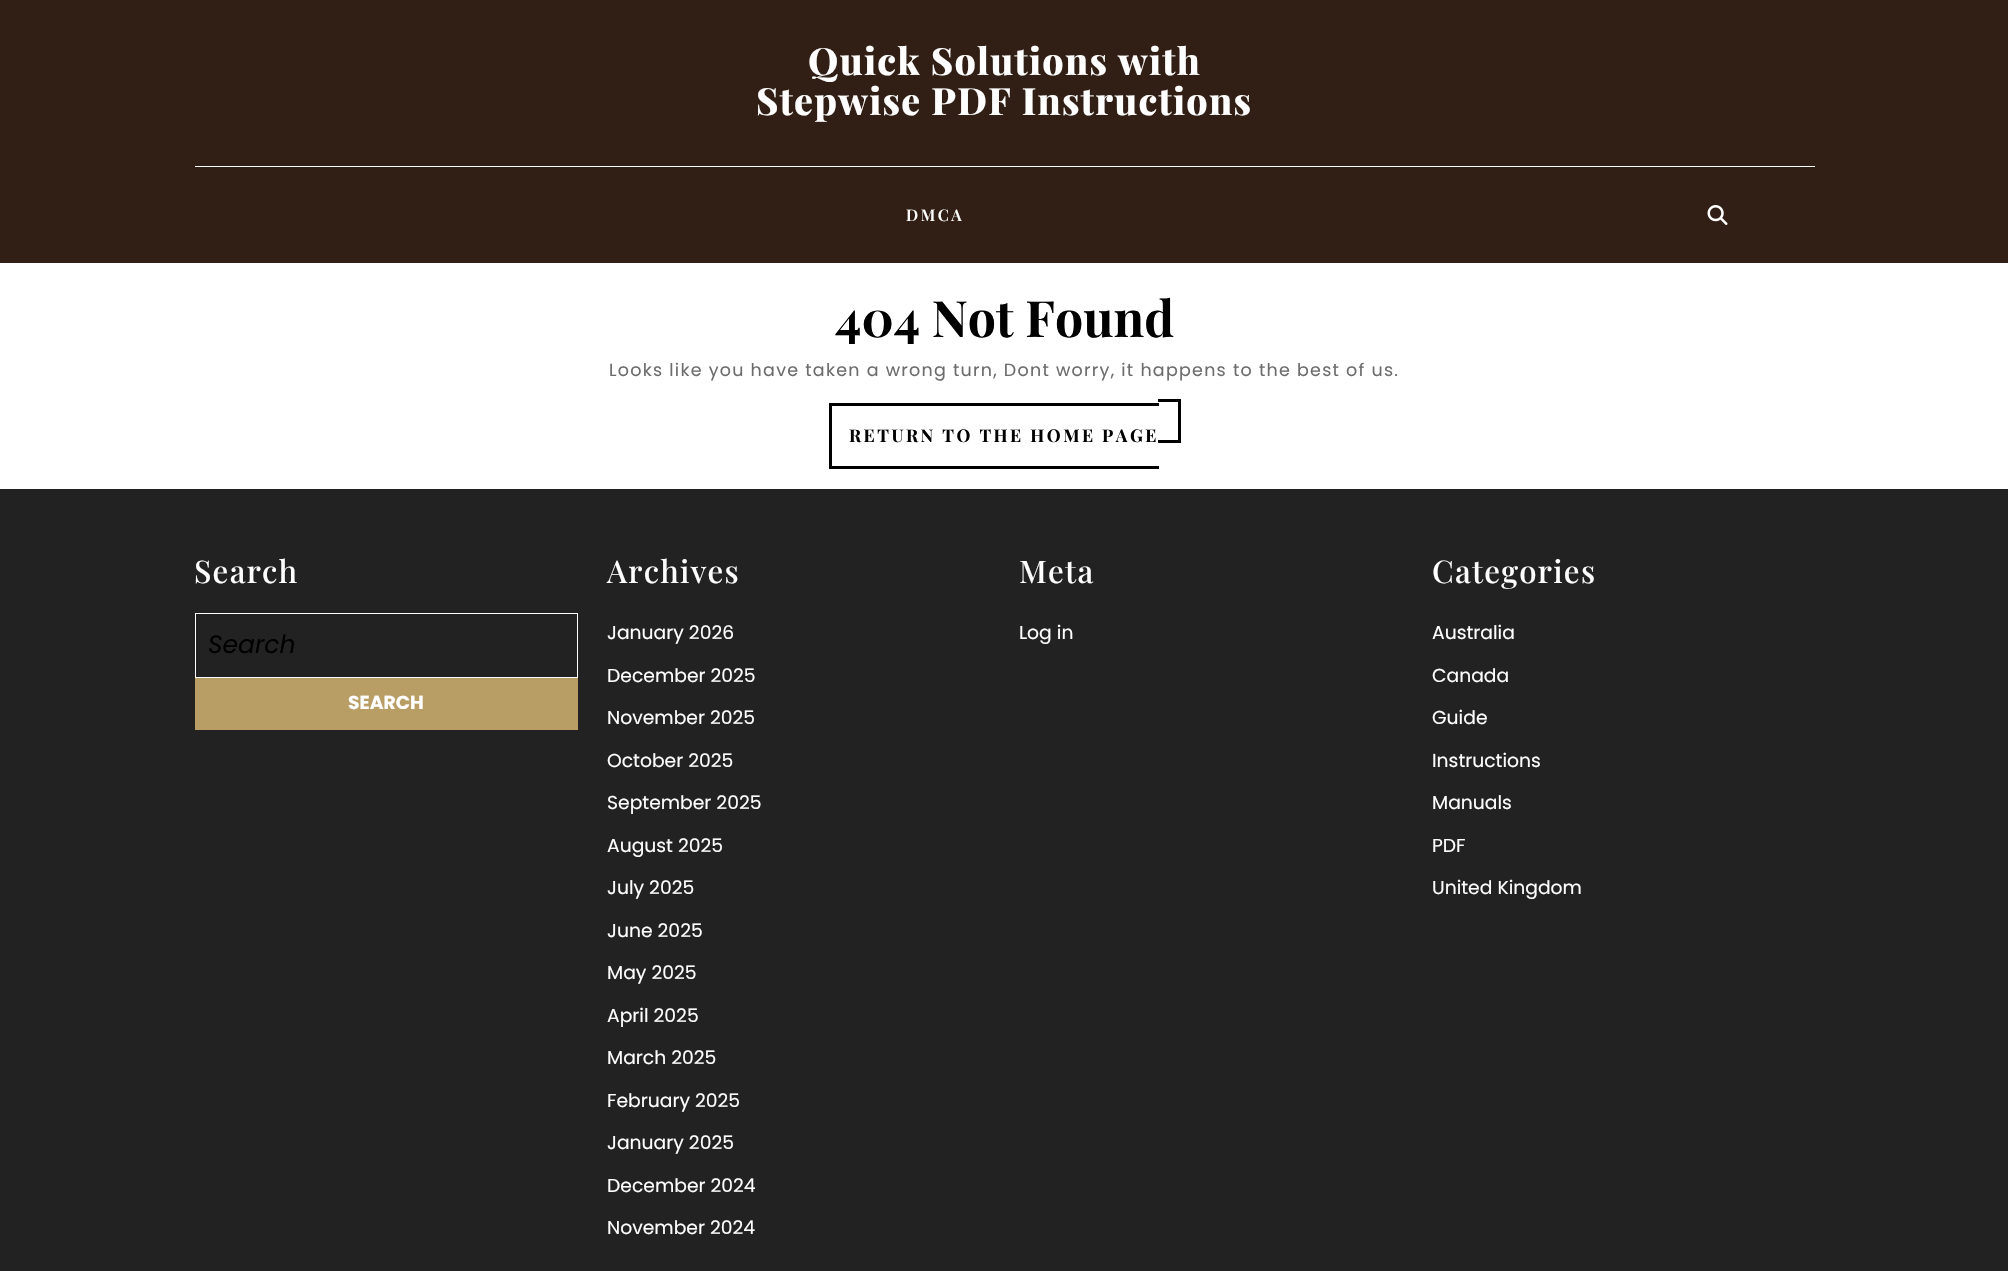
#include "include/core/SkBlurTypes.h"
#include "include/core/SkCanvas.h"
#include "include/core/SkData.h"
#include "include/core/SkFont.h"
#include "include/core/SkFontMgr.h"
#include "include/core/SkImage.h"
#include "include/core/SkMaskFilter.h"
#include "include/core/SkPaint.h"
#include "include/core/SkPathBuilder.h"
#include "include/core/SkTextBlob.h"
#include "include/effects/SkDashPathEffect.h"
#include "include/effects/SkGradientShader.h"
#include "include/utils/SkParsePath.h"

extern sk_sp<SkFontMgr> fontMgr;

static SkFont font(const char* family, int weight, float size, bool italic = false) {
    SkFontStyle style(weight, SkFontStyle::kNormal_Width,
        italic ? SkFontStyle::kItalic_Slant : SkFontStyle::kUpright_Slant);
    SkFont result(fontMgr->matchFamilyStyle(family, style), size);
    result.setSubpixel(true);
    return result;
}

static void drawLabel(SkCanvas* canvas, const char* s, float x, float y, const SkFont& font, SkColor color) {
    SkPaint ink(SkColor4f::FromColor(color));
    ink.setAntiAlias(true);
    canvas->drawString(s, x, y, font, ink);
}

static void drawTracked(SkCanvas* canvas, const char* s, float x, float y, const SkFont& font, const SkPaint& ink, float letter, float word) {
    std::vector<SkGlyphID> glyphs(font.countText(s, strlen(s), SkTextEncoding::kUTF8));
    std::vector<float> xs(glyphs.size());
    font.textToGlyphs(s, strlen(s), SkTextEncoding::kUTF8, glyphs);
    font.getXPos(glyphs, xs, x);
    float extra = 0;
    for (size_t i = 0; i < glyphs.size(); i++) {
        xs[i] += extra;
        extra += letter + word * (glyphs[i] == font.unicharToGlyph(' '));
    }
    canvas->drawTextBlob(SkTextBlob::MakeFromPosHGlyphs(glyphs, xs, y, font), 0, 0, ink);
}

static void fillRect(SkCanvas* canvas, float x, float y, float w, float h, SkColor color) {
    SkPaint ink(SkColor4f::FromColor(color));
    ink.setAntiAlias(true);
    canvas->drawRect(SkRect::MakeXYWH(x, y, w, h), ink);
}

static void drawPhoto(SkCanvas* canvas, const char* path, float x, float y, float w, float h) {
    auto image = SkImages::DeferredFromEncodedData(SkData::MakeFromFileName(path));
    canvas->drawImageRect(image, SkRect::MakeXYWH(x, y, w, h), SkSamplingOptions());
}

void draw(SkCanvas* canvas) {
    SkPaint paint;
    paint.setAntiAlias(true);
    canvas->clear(0xFFFFFFFF);
    fillRect(canvas, 0, 0, 2008, 263, 0xFF311F15);
    SkFont font1 = font("Playfair Display", 800, 37.5f);
    paint.setColor(0xFFFFFFFF);
    drawTracked(canvas, "Quick Solutions with", 808, 75, font1, paint, 1.25f, 0);
    drawTracked(canvas, "Stepwise PDF Instructions", 756, 115, font1, paint, 1.25f, 0);
    fillRect(canvas, 195, 166, 1620, 1, 0xFFFFFFFF);
    SkFont font2 = font("Playfair Display", 600, 16);
    drawTracked(canvas, "DMCA", 906, 221, font2, paint, 2.5f, 0);
    drawPhoto(canvas, "assets/img1.png", 1707, 205, 21, 20);
    SkFont font3 = font("Playfair Display", 700, 50);
    drawLabel(canvas, "404 Not Found", 835, 337, font3, 0xFF000000);
    SkFont font4 = font("Poppins", 400, 17.5f);
    paint.setColor(0xFF6C6C6C);
    drawTracked(canvas, "Looks like you have taken a wrong turn, Dont worry, it happens to the best of us.", 609, 376, font4, paint, 1.25f, 0);
    SkFont font5 = font("Playfair Display", 700, 17.5f);
    paint.setColor(0xFF000000);
    drawTracked(canvas, "RETURN TO THE HOME PAGE", 849, 442, font5, paint, 2.5f, 0);
    fillRect(canvas, 829, 403, 330, 3, 0xFF000000);
    fillRect(canvas, 829, 466, 330, 3, 0xFF000000);
    fillRect(canvas, 829, 403, 3, 66, 0xFF000000);
    fillRect(canvas, 1158, 399, 22, 3, 0xFF000000);
    fillRect(canvas, 1178, 399, 3, 44, 0xFF000000);
    fillRect(canvas, 1158, 440, 22, 3, 0xFF000000);
    fillRect(canvas, 0, 489, 2008, 782, 0xFF222222);
    SkFont font6 = font("Playfair Display", 500, 31.25f);
    paint.setColor(0xFFFFFFFF);
    drawTracked(canvas, "Search", 194, 583, font6, paint, 1.25f, 0);
    paint.setStroke(true);
    paint.setStrokeWidth(1);
    canvas->drawRect(SkRect::MakeXYWH(195.5f, 613.5f, 382, 64), paint);
    SkFont font7 = font("Poppins", 400, 25, true);
    drawLabel(canvas, "Search", 208, 653, font7, 0xFF000000);
    fillRect(canvas, 195, 678, 383, 52, 0xFFB89D64);
    SkFont font8 = font("Poppins", 700, 18.75f);
    drawLabel(canvas, "SEARCH", 348, 709, font8, 0xFFFFFFFF);
    paint.setStroke(false);
    drawTracked(canvas, "Archives", 607, 583, font6, paint, 1.25f, 0);
    SkFont font9 = font("Poppins", 400, 18.75f);
    drawLabel(canvas, "January 2026", 607, 639, font9, 0xFFFFFFFF);
    drawLabel(canvas, "December 2025", 607, 682, font9, 0xFFFFFFFF);
    drawLabel(canvas, "November 2025", 607, 724, font9, 0xFFFFFFFF);
    drawLabel(canvas, "October 2025", 607, 767, font9, 0xFFFFFFFF);
    drawLabel(canvas, "September 2025", 607, 809, font9, 0xFFFFFFFF);
    drawLabel(canvas, "August 2025", 607, 852, font9, 0xFFFFFFFF);
    drawLabel(canvas, "July 2025", 607, 894, font9, 0xFFFFFFFF);
    drawLabel(canvas, "June 2025", 607, 937, font9, 0xFFFFFFFF);
    drawLabel(canvas, "May 2025", 607, 979, font9, 0xFFFFFFFF);
    drawLabel(canvas, "April 2025", 607, 1022, font9, 0xFFFFFFFF);
    drawLabel(canvas, "March 2025", 607, 1064, font9, 0xFFFFFFFF);
    drawLabel(canvas, "February 2025", 607, 1107, font9, 0xFFFFFFFF);
    drawLabel(canvas, "January 2025", 607, 1149, font9, 0xFFFFFFFF);
    drawLabel(canvas, "December 2024", 607, 1192, font9, 0xFFFFFFFF);
    drawLabel(canvas, "November 2024", 607, 1234, font9, 0xFFFFFFFF);
    drawTracked(canvas, "Meta", 1019, 583, font6, paint, 1.25f, 0);
    drawLabel(canvas, "Log in", 1019, 639, font9, 0xFFFFFFFF);
    drawTracked(canvas, "Categories", 1432, 583, font6, paint, 1.25f, 0);
    drawLabel(canvas, "Australia", 1432, 639, font9, 0xFFFFFFFF);
    drawLabel(canvas, "Canada", 1432, 682, font9, 0xFFFFFFFF);
    drawLabel(canvas, "Guide", 1432, 724, font9, 0xFFFFFFFF);
    drawLabel(canvas, "Instructions", 1432, 767, font9, 0xFFFFFFFF);
    drawLabel(canvas, "Manuals", 1432, 809, font9, 0xFFFFFFFF);
    drawLabel(canvas, "PDF", 1432, 852, font9, 0xFFFFFFFF);
    drawLabel(canvas, "United Kingdom", 1432, 894, font9, 0xFFFFFFFF);
}
